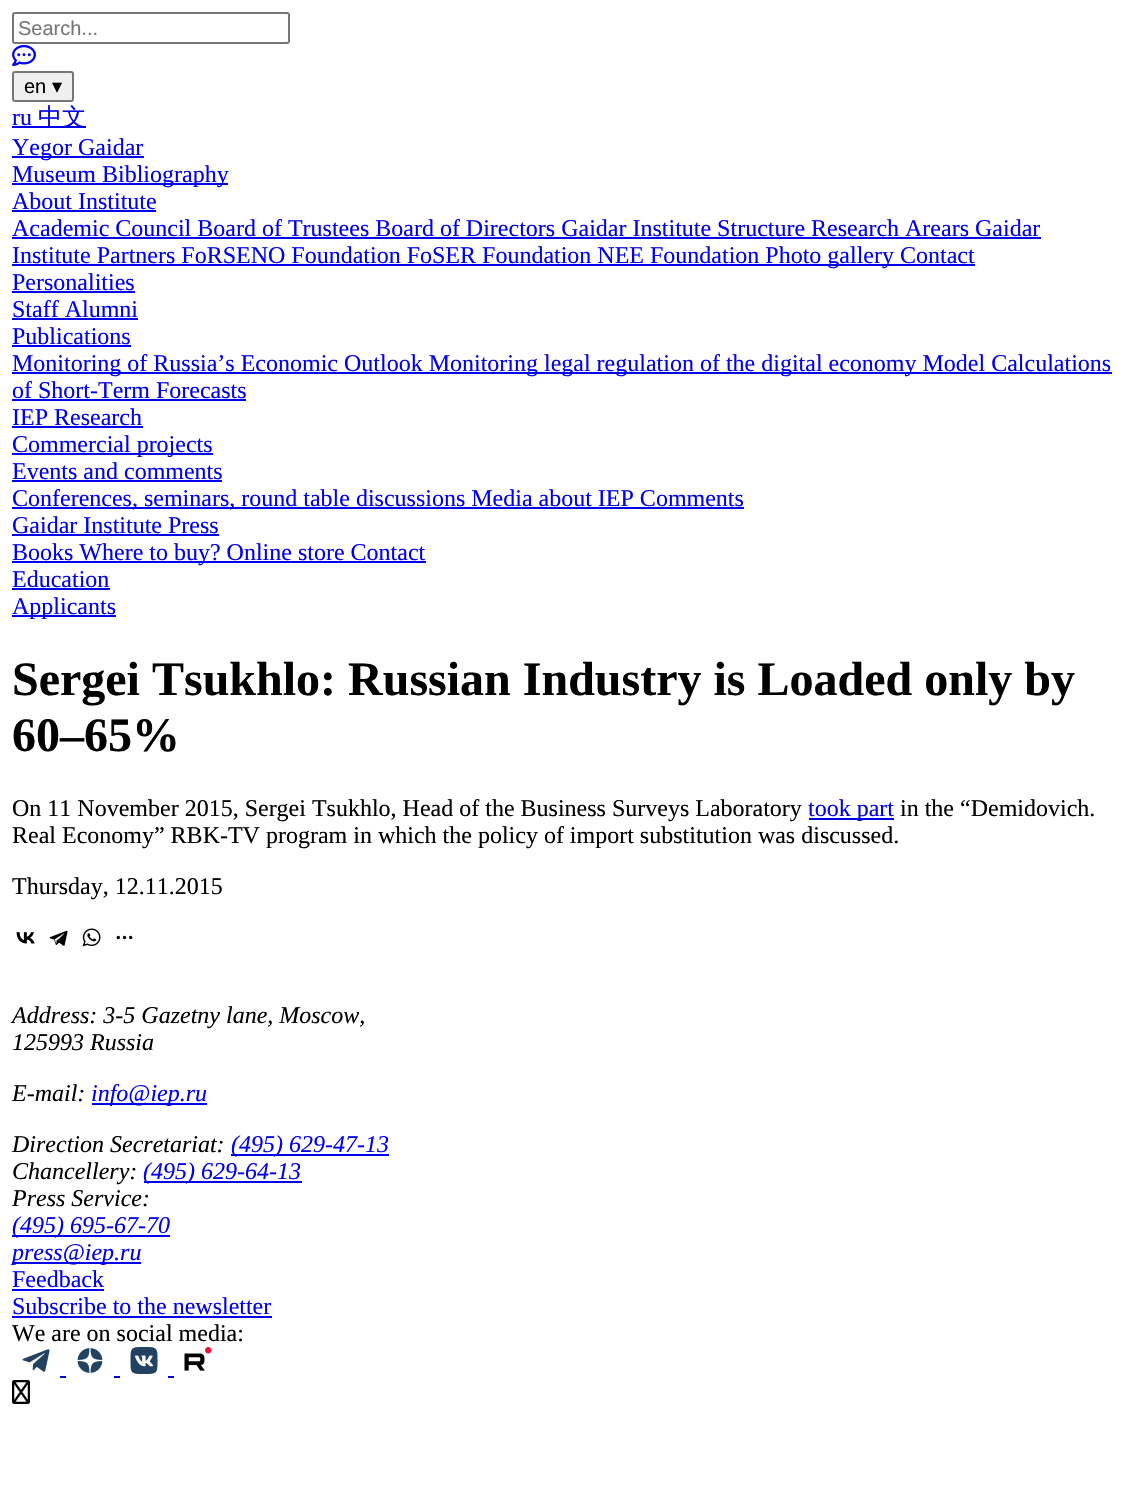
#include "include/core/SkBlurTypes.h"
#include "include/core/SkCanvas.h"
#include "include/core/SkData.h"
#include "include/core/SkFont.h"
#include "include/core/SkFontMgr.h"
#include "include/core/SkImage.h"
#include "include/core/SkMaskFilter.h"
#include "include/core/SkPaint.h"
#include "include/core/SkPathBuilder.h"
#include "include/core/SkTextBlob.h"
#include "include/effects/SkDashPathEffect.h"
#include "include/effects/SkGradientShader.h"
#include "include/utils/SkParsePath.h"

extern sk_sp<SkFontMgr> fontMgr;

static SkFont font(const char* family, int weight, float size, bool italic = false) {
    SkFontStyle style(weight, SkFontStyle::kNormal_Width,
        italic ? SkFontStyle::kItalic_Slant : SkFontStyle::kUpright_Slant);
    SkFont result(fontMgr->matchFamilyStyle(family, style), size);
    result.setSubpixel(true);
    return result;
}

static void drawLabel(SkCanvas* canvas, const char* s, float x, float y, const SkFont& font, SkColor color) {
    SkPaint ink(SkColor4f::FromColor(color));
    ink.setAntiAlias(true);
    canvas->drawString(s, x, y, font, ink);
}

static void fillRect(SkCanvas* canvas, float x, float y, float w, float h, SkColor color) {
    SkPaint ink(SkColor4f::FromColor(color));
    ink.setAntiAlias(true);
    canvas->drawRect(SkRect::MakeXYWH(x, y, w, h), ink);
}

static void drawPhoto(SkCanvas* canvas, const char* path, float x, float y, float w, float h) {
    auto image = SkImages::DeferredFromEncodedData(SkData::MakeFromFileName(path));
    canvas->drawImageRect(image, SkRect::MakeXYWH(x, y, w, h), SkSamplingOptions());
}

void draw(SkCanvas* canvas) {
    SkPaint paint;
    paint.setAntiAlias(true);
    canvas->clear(0xFFFFFFFF);
    paint.setStroke(true);
    paint.setStrokeWidth(2);
    paint.setColor(0xFF767676);
    canvas->drawRoundRect(SkRect::MakeXYWH(13, 13, 276, 30), 2, 2, paint);
    SkFont font1 = font("Liberation Sans", 400, 20);
    drawLabel(canvas, "Search...", 18, 35, font1, 0xFF757575);
    drawPhoto(canvas, "assets/img1.png", 12, 45, 24, 21);
    paint.setStroke(false);
    paint.setColor(0xFFEFEFEF);
    canvas->drawRoundRect(SkRect::MakeXYWH(13, 72, 60, 29), 2, 2, paint);
    paint.setStroke(true);
    paint.setColor(0xFF767676);
    canvas->drawRoundRect(SkRect::MakeXYWH(13, 72, 60, 29), 2, 2, paint);
    drawLabel(canvas, "en", 24, 93, font1, 0xFF000000);
    SkFont font2 = font("DejaVu Sans", 400, 20);
    drawLabel(canvas, "▾", 52, 93, font2, 0xFF000000);
    SkFont font3 = font("Liberation Serif", 400, 24);
    drawLabel(canvas, "ru", 12, 125, font3, 0xFF0000EE);
    fillRect(canvas, 12, 126, 74, 2, 0xFF0000EE);
    SkFont font4 = font("WenQuanYi Zen Hei", 500, 24);
    drawLabel(canvas, "中文", 38, 125, font4, 0xFF0000EE);
    fillRect(canvas, 12, 156, 132, 2, 0xFF0000EE);
    drawLabel(canvas, "Yegor Gaidar", 12, 155, font3, 0xFF0000EE);
    fillRect(canvas, 12, 183, 216, 2, 0xFF0000EE);
    drawLabel(canvas, "Museum Bibliography", 12, 182, font3, 0xFF0000EE);
    drawLabel(canvas, "About Institute", 12, 209, font3, 0xFF0000EE);
    fillRect(canvas, 12, 210, 144, 2, 0xFF0000EE);
    drawLabel(canvas, "Academic Council Board of Trustees Board of Directors Gaidar Institute Structure Research Arears Gaidar", 12, 236, font3, 0xFF0000EE);
    fillRect(canvas, 12, 237, 1029, 2, 0xFF0000EE);
    fillRect(canvas, 12, 264, 963, 2, 0xFF0000EE);
    drawLabel(canvas, "Institute Partners FoRSENO Foundation FoSER Foundation NEE Foundation Photo gallery Contact", 12, 263, font3, 0xFF0000EE);
    drawLabel(canvas, "Personalities", 12, 290, font3, 0xFF0000EE);
    fillRect(canvas, 12, 291, 123, 2, 0xFF0000EE);
    drawLabel(canvas, "Staff Alumni", 12, 317, font3, 0xFF0000EE);
    fillRect(canvas, 12, 318, 126, 2, 0xFF0000EE);
    drawLabel(canvas, "Publications", 12, 344, font3, 0xFF0000EE);
    fillRect(canvas, 12, 345, 119, 2, 0xFF0000EE);
    fillRect(canvas, 12, 372, 1100, 2, 0xFF0000EE);
    drawLabel(canvas, "Monitoring of Russia’s Economic Outlook Monitoring legal regulation of the digital economy Model Calculations", 12, 371, font3, 0xFF0000EE);
    drawLabel(canvas, "of Short-Term Forecasts", 12, 398, font3, 0xFF0000EE);
    fillRect(canvas, 12, 399, 234, 2, 0xFF0000EE);
    drawLabel(canvas, "IEP Research", 12, 425, font3, 0xFF0000EE);
    fillRect(canvas, 12, 426, 131, 2, 0xFF0000EE);
    fillRect(canvas, 12, 453, 201, 2, 0xFF0000EE);
    drawLabel(canvas, "Commercial projects", 12, 452, font3, 0xFF0000EE);
    drawLabel(canvas, "Events and comments", 12, 479, font3, 0xFF0000EE);
    fillRect(canvas, 12, 480, 210, 2, 0xFF0000EE);
    fillRect(canvas, 12, 507, 732, 2, 0xFF0000EE);
    drawLabel(canvas, "Conferences, seminars, round table discussions Media about IEP Comments", 12, 506, font3, 0xFF0000EE);
    drawLabel(canvas, "Gaidar Institute Press", 12, 533, font3, 0xFF0000EE);
    fillRect(canvas, 12, 534, 207, 2, 0xFF0000EE);
    fillRect(canvas, 12, 561, 414, 2, 0xFF0000EE);
    drawLabel(canvas, "Books Where to buy? Online store Contact", 12, 560, font3, 0xFF0000EE);
    drawLabel(canvas, "Education", 12, 587, font3, 0xFF0000EE);
    fillRect(canvas, 12, 588, 98, 2, 0xFF0000EE);
    fillRect(canvas, 12, 615, 104, 2, 0xFF0000EE);
    drawLabel(canvas, "Applicants", 12, 614, font3, 0xFF0000EE);
    SkFont font5 = font("Liberation Serif", 700, 48);
    drawLabel(canvas, "Sergei Tsukhlo: Russian Industry is Loaded only by", 12, 695, font5, 0xFF000000);
    drawLabel(canvas, "60–65%", 12, 751, font5, 0xFF000000);
    drawLabel(canvas, "On 11 November 2015, Sergei Tsukhlo, Head of the Business Surveys Laboratory", 12, 816, font3, 0xFF000000);
    fillRect(canvas, 809, 818, 85, 2, 0xFF0000EE);
    drawLabel(canvas, "took part", 808, 816, font3, 0xFF0000EE);
    drawLabel(canvas, "in the “Demidovich.", 900, 816, font3, 0xFF000000);
    drawLabel(canvas, "Real Economy” RBK-TV program in which the policy of import substitution was discussed.", 12, 843, font3, 0xFF000000);
    drawLabel(canvas, "Thursday, 12.11.2015", 12, 894, font3, 0xFF000000);
    drawPhoto(canvas, "assets/img2.png", 16, 932, 19, 12);
    drawPhoto(canvas, "assets/img3.png", 49, 930, 19, 16);
    drawPhoto(canvas, "assets/img4.png", 82, 928, 19, 19);
    drawPhoto(canvas, "assets/img5.png", 116, 935, 17, 5);
    SkFont font6 = font("Liberation Serif", 400, 24, true);
    drawLabel(canvas, "Address: 3-5 Gazetny lane, Moscow,", 12, 1023, font6, 0xFF000000);
    drawLabel(canvas, "125993 Russia", 12, 1050, font6, 0xFF000000);
    drawLabel(canvas, "E-mail:", 12, 1101, font6, 0xFF000000);
    fillRect(canvas, 92, 1103, 115, 2, 0xFF0000EE);
    drawLabel(canvas, "info@iep.ru", 91, 1101, font6, 0xFF0000EE);
    drawLabel(canvas, "Direction Secretariat:", 12, 1152, font6, 0xFF000000);
    fillRect(canvas, 231, 1154, 158, 2, 0xFF0000EE);
    drawLabel(canvas, "(495) 629-47-13", 231, 1152, font6, 0xFF0000EE);
    drawLabel(canvas, "Chancellery:", 12, 1179, font6, 0xFF000000);
    fillRect(canvas, 144, 1181, 158, 2, 0xFF0000EE);
    drawLabel(canvas, "(495) 629-64-13", 143, 1179, font6, 0xFF0000EE);
    drawLabel(canvas, "Press Service:", 12, 1206, font6, 0xFF000000);
    fillRect(canvas, 12, 1235, 158, 2, 0xFF0000EE);
    drawLabel(canvas, "(495) 695-67-70", 12, 1233, font6, 0xFF0000EE);
    fillRect(canvas, 12, 1262, 129, 2, 0xFF0000EE);
    drawLabel(canvas, "press@iep.ru", 12, 1260, font6, 0xFF0000EE);
    drawLabel(canvas, "Feedback", 12, 1287, font3, 0xFF0000EE);
    fillRect(canvas, 12, 1289, 92, 2, 0xFF0000EE);
    drawLabel(canvas, "Subscribe to the newsletter", 12, 1314, font3, 0xFF0000EE);
    fillRect(canvas, 12, 1316, 260, 2, 0xFF0000EE);
    drawLabel(canvas, "We are on social media:", 12, 1341, font3, 0xFF000000);
    drawPhoto(canvas, "assets/img6.png", 22, 1349, 28, 23);
    drawPhoto(canvas, "assets/img7.png", 77, 1348, 26, 25);
    drawPhoto(canvas, "assets/img8.png", 130, 1347, 28, 27);
    drawPhoto(canvas, "assets/img9.png", 184, 1347, 28, 24);
    fillRect(canvas, 60, 1376, 6, 2, 0xFF0000EE);
    fillRect(canvas, 114, 1376, 6, 2, 0xFF0000EE);
    fillRect(canvas, 168, 1376, 6, 2, 0xFF0000EE);
    drawPhoto(canvas, "assets/img10.png", 12, 1380, 18, 24);
}
